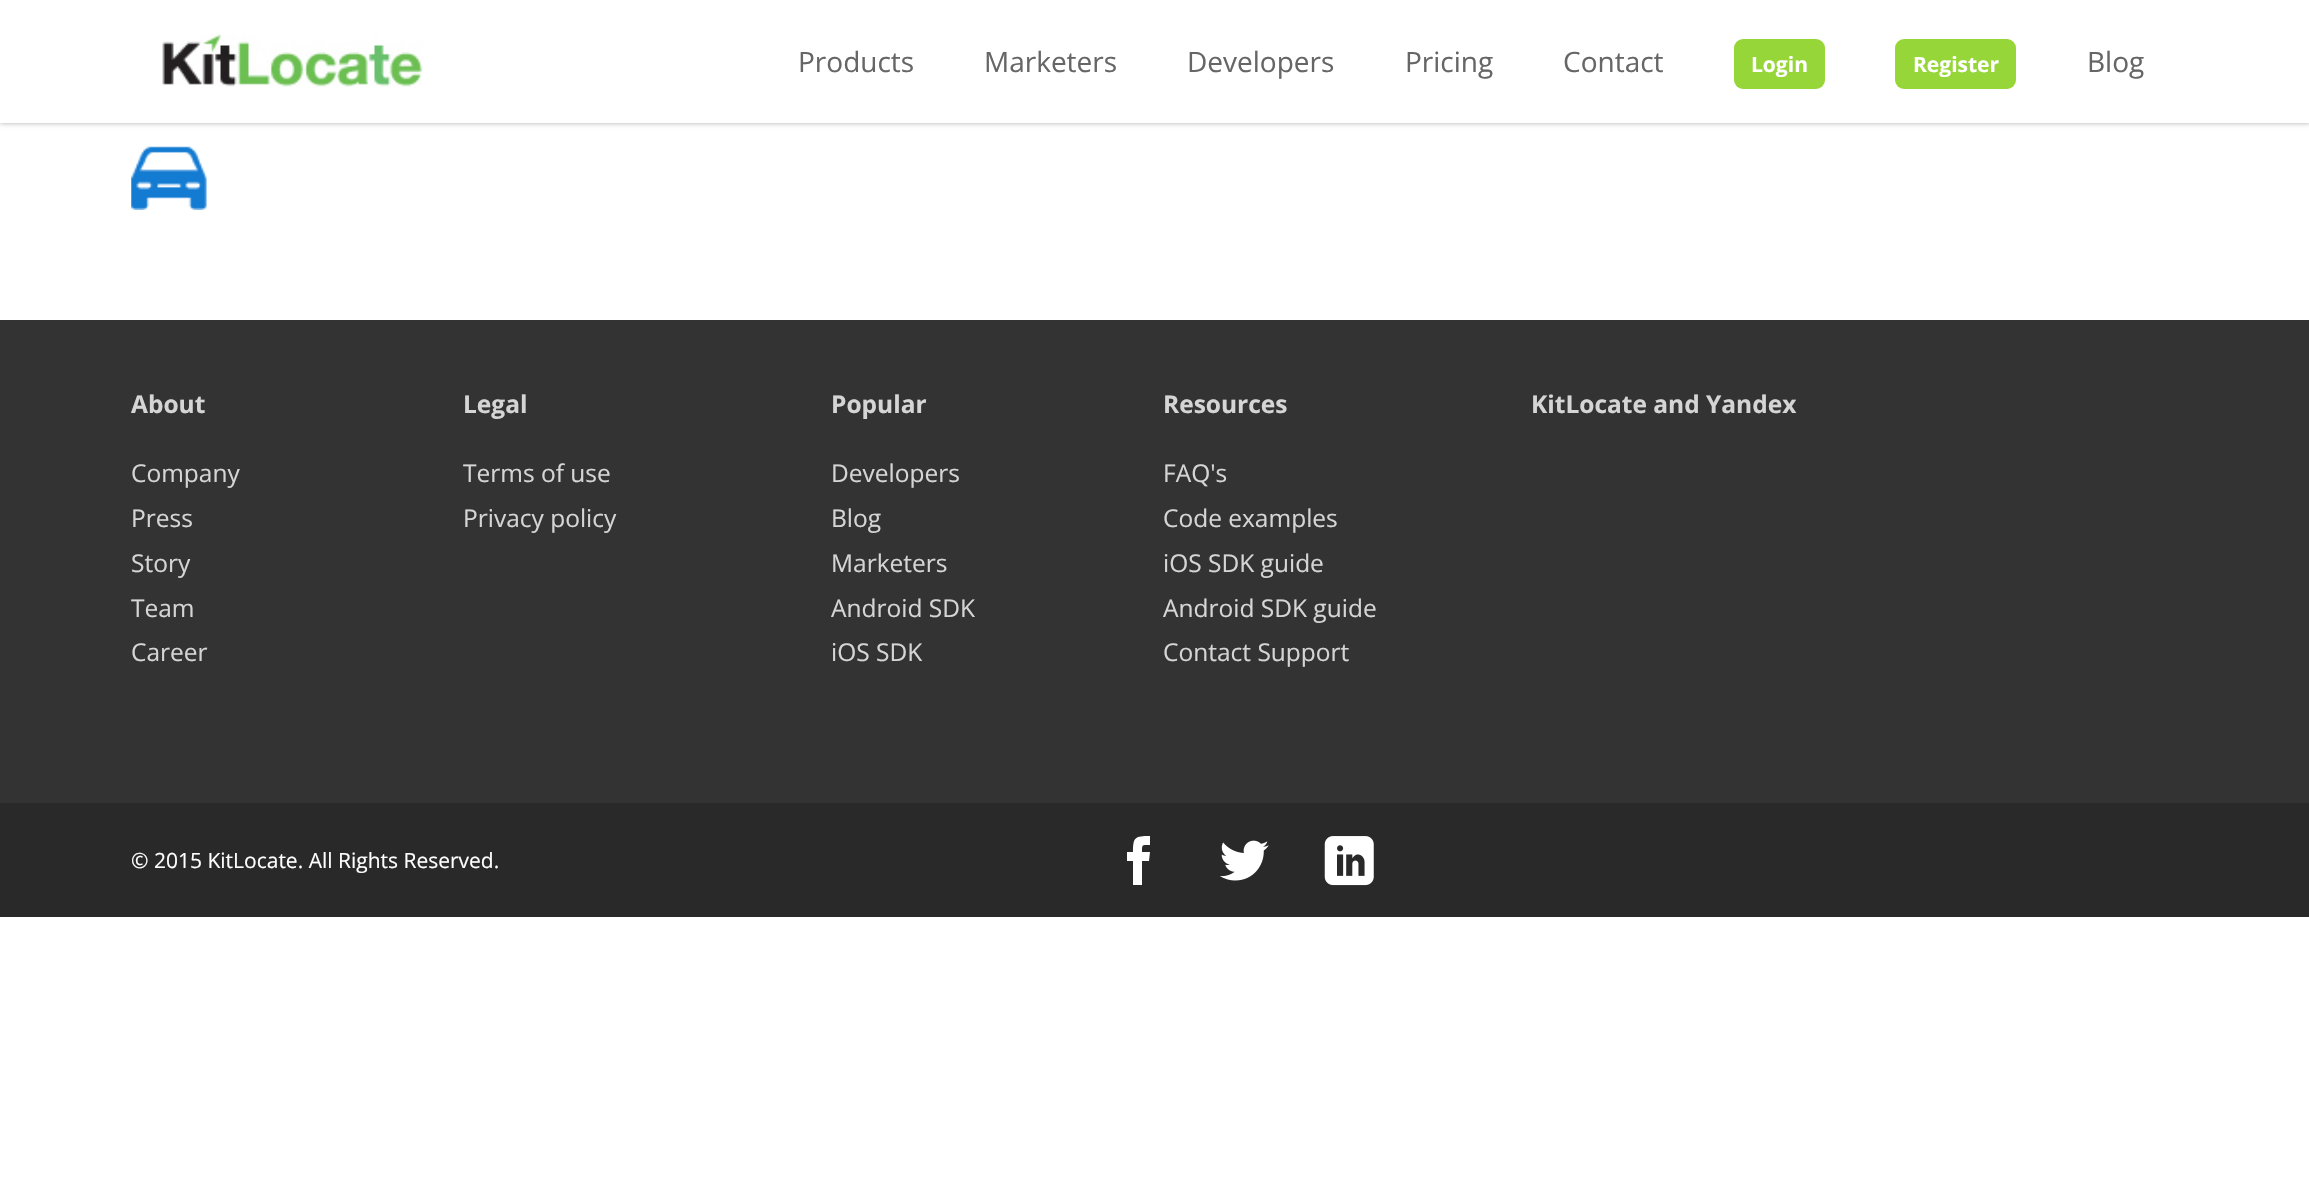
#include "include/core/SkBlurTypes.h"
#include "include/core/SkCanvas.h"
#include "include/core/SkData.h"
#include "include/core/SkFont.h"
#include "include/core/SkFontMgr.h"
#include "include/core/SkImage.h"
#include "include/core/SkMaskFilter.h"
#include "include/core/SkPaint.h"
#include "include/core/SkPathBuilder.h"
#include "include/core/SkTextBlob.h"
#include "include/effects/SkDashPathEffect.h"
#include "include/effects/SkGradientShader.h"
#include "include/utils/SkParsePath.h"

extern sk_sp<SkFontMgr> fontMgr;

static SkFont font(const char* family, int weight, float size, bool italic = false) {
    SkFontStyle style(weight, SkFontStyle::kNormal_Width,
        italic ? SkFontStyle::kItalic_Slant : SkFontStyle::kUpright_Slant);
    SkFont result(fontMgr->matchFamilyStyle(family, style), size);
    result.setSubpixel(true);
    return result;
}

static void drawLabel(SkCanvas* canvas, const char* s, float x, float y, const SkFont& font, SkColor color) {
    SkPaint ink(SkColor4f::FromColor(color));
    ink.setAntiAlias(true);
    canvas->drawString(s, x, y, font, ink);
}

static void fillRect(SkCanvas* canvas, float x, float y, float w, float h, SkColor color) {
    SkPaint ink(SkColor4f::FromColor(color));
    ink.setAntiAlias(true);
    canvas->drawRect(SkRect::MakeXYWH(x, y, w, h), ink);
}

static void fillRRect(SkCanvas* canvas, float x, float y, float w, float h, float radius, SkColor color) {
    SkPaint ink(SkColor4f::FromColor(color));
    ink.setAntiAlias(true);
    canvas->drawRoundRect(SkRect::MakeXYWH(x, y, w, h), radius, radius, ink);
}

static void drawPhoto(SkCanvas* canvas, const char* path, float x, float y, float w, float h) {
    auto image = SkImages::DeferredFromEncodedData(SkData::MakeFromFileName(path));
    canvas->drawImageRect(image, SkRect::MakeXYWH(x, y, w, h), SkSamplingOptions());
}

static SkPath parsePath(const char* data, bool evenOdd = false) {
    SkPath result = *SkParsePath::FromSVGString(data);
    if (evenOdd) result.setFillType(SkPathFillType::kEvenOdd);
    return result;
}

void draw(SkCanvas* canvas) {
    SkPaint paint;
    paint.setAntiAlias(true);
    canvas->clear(0xFFFFFFFF);
    paint.setColor(0x54000000);
    paint.setMaskFilter(SkMaskFilter::MakeBlur(kNormal_SkBlurStyle, 2.5f));
    canvas->drawRect(SkRect::MakeXYWH(0, 0, 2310, 123), paint);
    paint.setMaskFilter(nullptr);
    fillRect(canvas, 0, 0, 2309, 123, 0xFFFFFFFF);
    drawPhoto(canvas, "assets/img1.png", 162, 34, 261, 53);
    SkFont font1 = font("Open Sans", 400, 28);
    drawLabel(canvas, "Products", 798, 72, font1, 0xFF666666);
    drawLabel(canvas, "Marketers", 984, 72, font1, 0xFF666666);
    drawLabel(canvas, "Developers", 1187, 72, font1, 0xFF666666);
    drawLabel(canvas, "Pricing", 1405, 72, font1, 0xFF666666);
    drawLabel(canvas, "Contact", 1563, 72, font1, 0xFF666666);
    fillRRect(canvas, 1734, 39, 91, 50, 9, 0xFF96D639);
    SkFont font2 = font("Open Sans", 700, 21);
    drawLabel(canvas, "Login", 1751, 72, font2, 0xFFFFFFFF);
    fillRRect(canvas, 1895, 39, 121, 50, 9, 0xFF96D639);
    drawLabel(canvas, "Register", 1913, 72, font2, 0xFFFFFFFF);
    drawLabel(canvas, "Blog", 2087, 72, font1, 0xFF666666);
    drawPhoto(canvas, "assets/img2.png", 131, 146, 76, 64);
    fillRect(canvas, 0, 320, 2309, 483, 0xFF333333);
    SkFont font3 = font("Open Sans", 700, 24.5f);
    drawLabel(canvas, "About", 131, 413, font3, 0xFFD5D5D5);
    SkFont font4 = font("Open Sans", 400, 24.5f);
    drawLabel(canvas, "Company", 131, 482, font4, 0xFFD5D5D5);
    drawLabel(canvas, "Press", 131, 527, font4, 0xFFD5D5D5);
    drawLabel(canvas, "Story", 131, 572, font4, 0xFFD5D5D5);
    drawLabel(canvas, "Team", 131, 617, font4, 0xFFD5D5D5);
    drawLabel(canvas, "Career", 131, 661, font4, 0xFFD5D5D5);
    drawLabel(canvas, "Legal", 463, 413, font3, 0xFFD5D5D5);
    drawLabel(canvas, "Terms of use", 463, 482, font4, 0xFFD5D5D5);
    drawLabel(canvas, "Privacy policy", 463, 527, font4, 0xFFD5D5D5);
    drawLabel(canvas, "Popular", 831, 413, font3, 0xFFD5D5D5);
    drawLabel(canvas, "Developers", 831, 482, font4, 0xFFD5D5D5);
    drawLabel(canvas, "Blog", 831, 527, font4, 0xFFD5D5D5);
    drawLabel(canvas, "Marketers", 831, 572, font4, 0xFFD5D5D5);
    drawLabel(canvas, "Android SDK", 831, 617, font4, 0xFFD5D5D5);
    drawLabel(canvas, "iOS SDK", 831, 661, font4, 0xFFD5D5D5);
    drawLabel(canvas, "Resources", 1163, 413, font3, 0xFFD5D5D5);
    drawLabel(canvas, "FAQ's", 1163, 482, font4, 0xFFD5D5D5);
    drawLabel(canvas, "Code examples", 1163, 527, font4, 0xFFD5D5D5);
    drawLabel(canvas, "iOS SDK guide", 1163, 572, font4, 0xFFD5D5D5);
    drawLabel(canvas, "Android SDK guide", 1163, 617, font4, 0xFFD5D5D5);
    drawLabel(canvas, "Contact Support", 1163, 661, font4, 0xFFD5D5D5);
    drawLabel(canvas, "KitLocate and Yandex", 1531, 413, font3, 0xFFD5D5D5);
    fillRect(canvas, 0, 803, 2309, 114, 0xFF292929);
    SkFont font5 = font("Open Sans", 400, 21);
    drawLabel(canvas, "© 2015 KitLocate. All Rights Reserved.", 131, 868, font5, 0xFFFFFFFF);
    paint.setColor(0xFFFFFFFF);
    canvas->drawPath(parsePath("M1142 885V861H1149L1150 852H1142C1142 844 1142 845 1150 845V836C1135 836 1133 837 1133 852H1127V861H1133V885Z"), paint);
    drawPhoto(canvas, "assets/img3.png", 1220, 840, 49, 41);
    drawPhoto(canvas, "assets/img4.png", 1324, 836, 50, 50);
}
